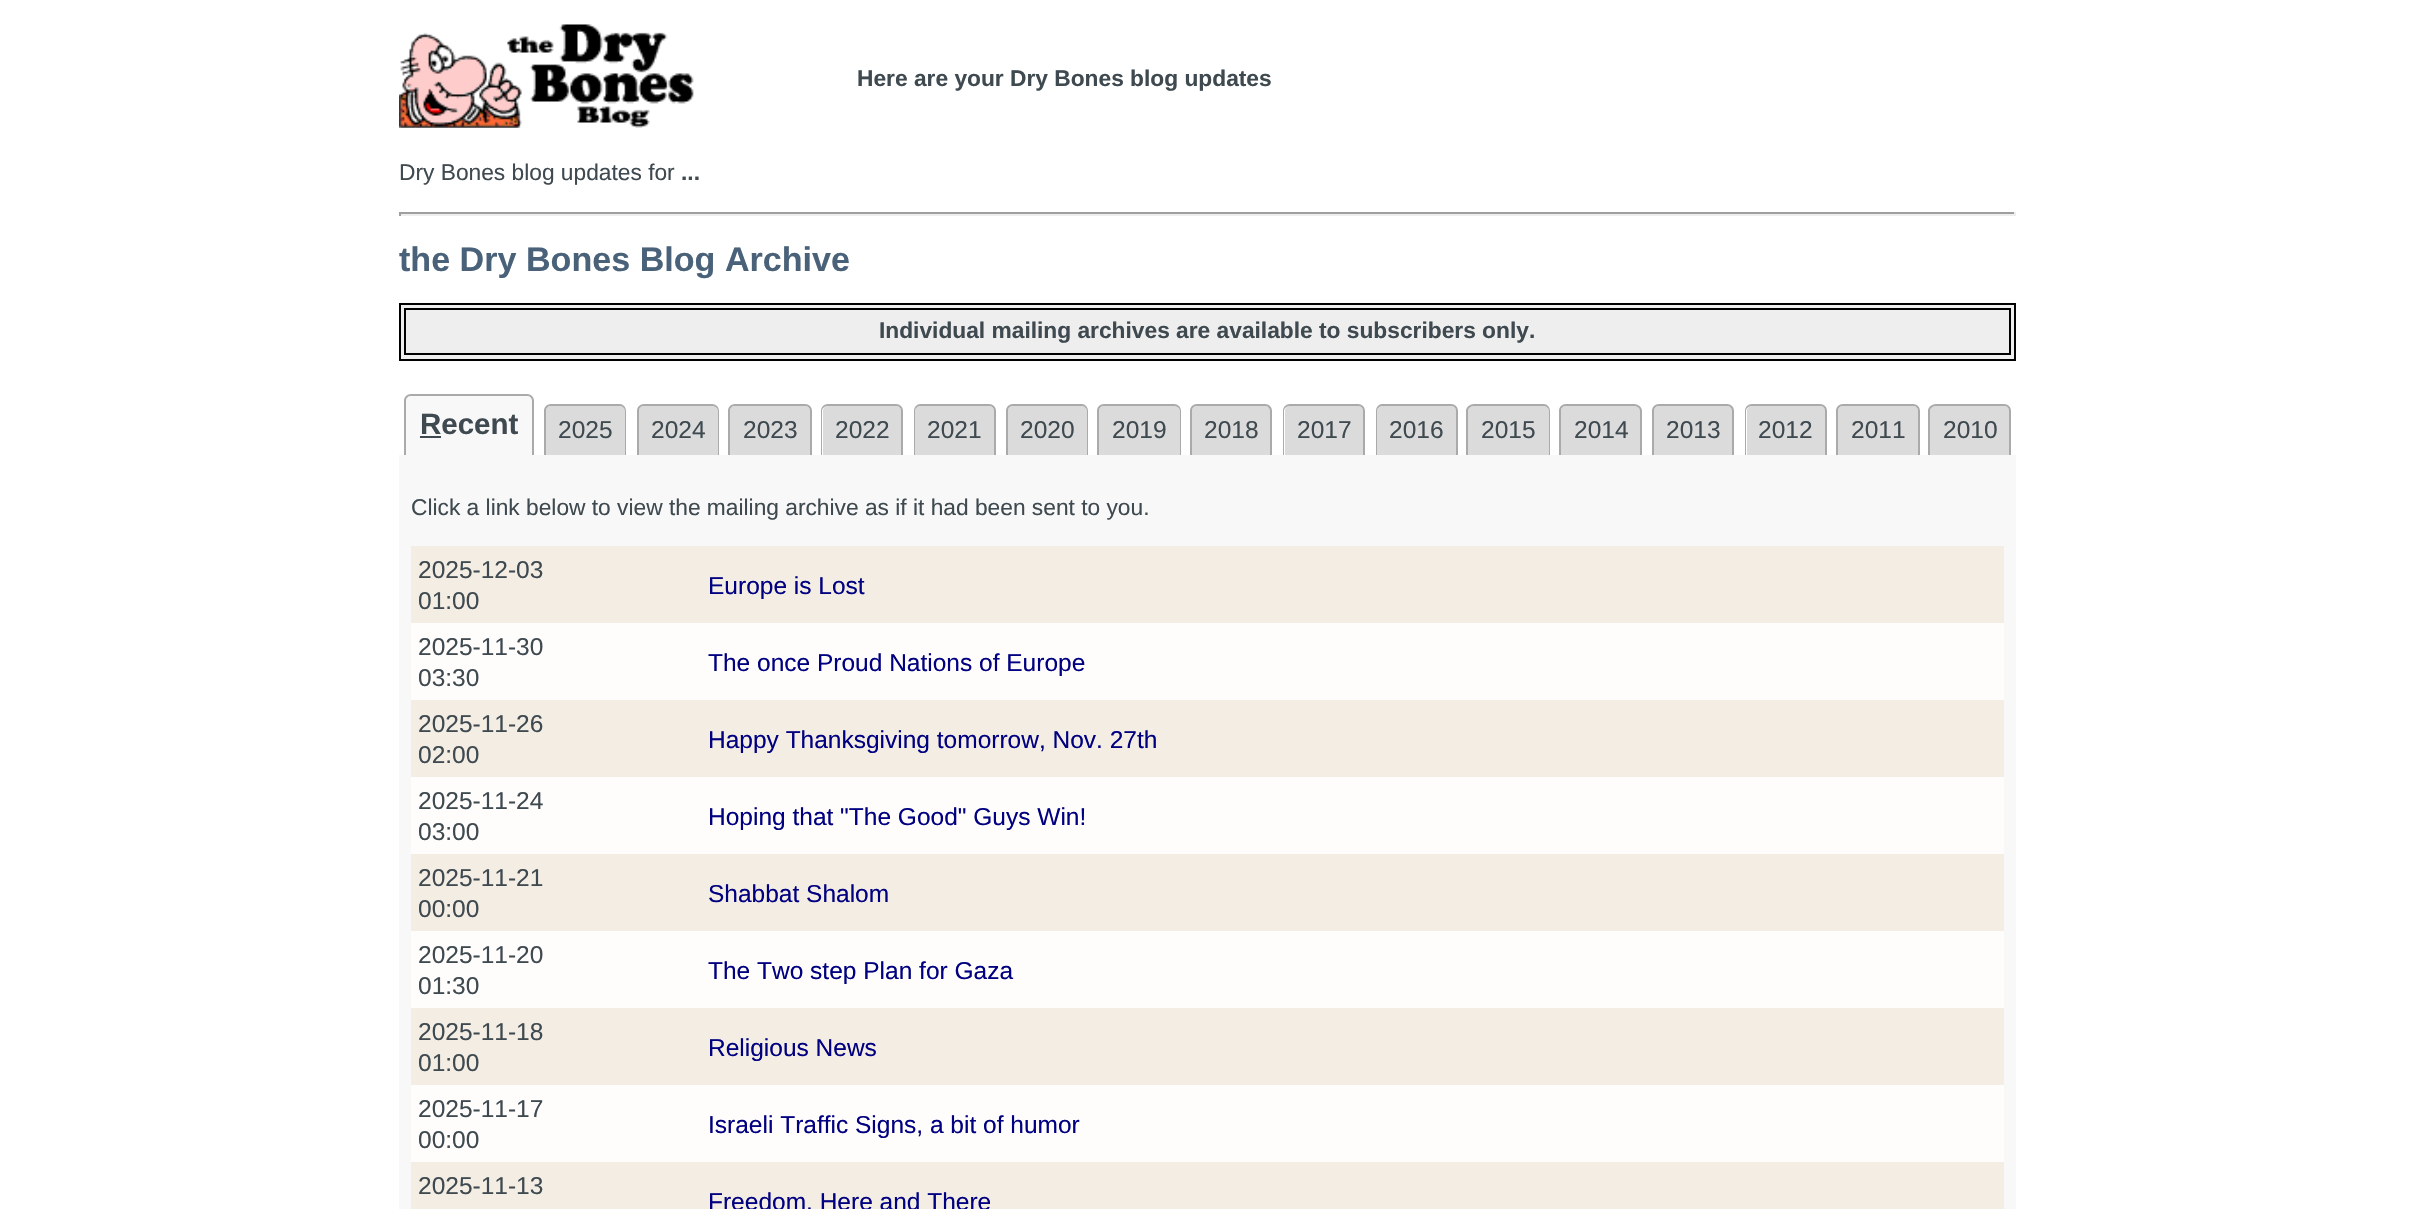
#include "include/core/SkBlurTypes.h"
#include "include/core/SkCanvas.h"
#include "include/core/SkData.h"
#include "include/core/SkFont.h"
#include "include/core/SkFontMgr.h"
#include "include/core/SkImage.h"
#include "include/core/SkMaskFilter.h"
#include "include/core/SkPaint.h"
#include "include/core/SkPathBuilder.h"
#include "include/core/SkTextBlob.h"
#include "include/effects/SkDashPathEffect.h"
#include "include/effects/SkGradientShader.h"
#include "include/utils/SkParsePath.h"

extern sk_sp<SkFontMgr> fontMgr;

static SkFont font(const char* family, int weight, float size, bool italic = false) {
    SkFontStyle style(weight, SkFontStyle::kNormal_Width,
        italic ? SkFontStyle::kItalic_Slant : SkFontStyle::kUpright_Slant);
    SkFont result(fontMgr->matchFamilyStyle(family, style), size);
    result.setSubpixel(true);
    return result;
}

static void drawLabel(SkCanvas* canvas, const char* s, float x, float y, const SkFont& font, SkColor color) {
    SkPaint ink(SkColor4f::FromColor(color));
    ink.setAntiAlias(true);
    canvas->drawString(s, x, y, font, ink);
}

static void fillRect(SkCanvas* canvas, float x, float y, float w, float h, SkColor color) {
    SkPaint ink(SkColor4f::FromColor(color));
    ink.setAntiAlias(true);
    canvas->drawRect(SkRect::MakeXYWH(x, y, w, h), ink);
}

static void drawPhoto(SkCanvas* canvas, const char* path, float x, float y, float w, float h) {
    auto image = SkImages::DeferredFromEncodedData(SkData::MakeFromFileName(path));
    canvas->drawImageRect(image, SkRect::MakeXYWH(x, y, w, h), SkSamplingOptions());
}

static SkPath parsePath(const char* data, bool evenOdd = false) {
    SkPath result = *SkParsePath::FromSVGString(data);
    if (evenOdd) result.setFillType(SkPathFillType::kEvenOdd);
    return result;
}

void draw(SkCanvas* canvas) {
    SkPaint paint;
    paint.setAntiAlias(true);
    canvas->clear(0xFFFFFFFF);
    drawPhoto(canvas, "assets/img1.png", 399, 24, 295, 104);
    SkFont font1 = font("Liberation Sans", 700, 22.75f);
    drawLabel(canvas, "Here are your Dry Bones blog updates", 857, 86, font1, 0xFF3F4A50);
    SkFont font2 = font("Liberation Sans", 400, 22.75f);
    drawLabel(canvas, "Dry Bones blog updates for", 399, 180, font2, 0xFF3F4A50);
    drawLabel(canvas, "...", 681, 180, font1, 0xFF3F4A50);
    fillRect(canvas, 399, 212, 1617, 2, 0xFF9F9F9F);
    fillRect(canvas, 2014, 212, 2, 4, 0xFFEEEEEE);
    fillRect(canvas, 399, 214, 1617, 2, 0xFFEEEEEE);
    fillRect(canvas, 399, 212, 2, 4, 0xFF9F9F9F);
    SkFont font3 = font("Liberation Sans", 700, 34.1f);
    drawLabel(canvas, "the Dry Bones Blog Archive", 399, 271, font3, 0xFF4A6279);
    paint.setColor(0xFFEEEEEE);
    canvas->drawRect(SkRect::MakeXYWH(400, 304, 1615, 56), paint);
    paint.setStroke(true);
    paint.setStrokeWidth(2);
    paint.setColor(0xFF000000);
    canvas->drawRect(SkRect::MakeXYWH(400, 304, 1615, 56), paint);
    canvas->drawRect(SkRect::MakeXYWH(405, 309, 1605, 45), paint);
    drawLabel(canvas, "Individual mailing archives are available to subscribers only.", 879, 338, font1, 0xFF3F4A50);
    paint.setStroke(false);
    paint.setColor(0xFFF8F8F8);
    canvas->drawPath(parsePath("M411 396H527C530 396 532 398 532 401V455H406V401C406 398 408 396 411 396Z"), paint);
    paint.setColor(0xFFAAAAAA);
    canvas->drawPath(parsePath("M411 394H527C531 394 534 397 534 401V455H404V401C404 397 407 394 411 394ZM411 396H527C530 396 532 398 532 401V455H406V401C406 398 408 396 411 396Z", true), paint);
    SkFont font4 = font("Liberation Sans", 700, 29.5f);
    drawLabel(canvas, "Recent", 420, 434, font4, 0xFF3F4A50);
    fillRect(canvas, 420, 436, 21, 2, 0xFF3F4A50);
    paint.setColor(0xFFDBDBDB);
    canvas->drawPath(parsePath("M551 406H620C623 406 625 408 625 411V455H546V411C546 408 548 406 551 406Z"), paint);
    paint.setColor(0xFFAAAAAA);
    canvas->drawPath(parsePath("M551 404H620C623 404 626 407 626 411V455H544V411C544 407 547 404 551 404ZM551 406H620C622 406 625 408 625 411V455H546V411C546 408 548 406 551 406Z", true), paint);
    SkFont font5 = font("Liberation Sans", 400, 24.5f);
    drawLabel(canvas, "2025", 558, 438, font5, 0xFF3F4A50);
    paint.setColor(0xFFDBDBDB);
    canvas->drawPath(parsePath("M644 406H713C716 406 718 408 718 411V455H639V411C639 408 641 406 644 406Z"), paint);
    paint.setColor(0xFFAAAAAA);
    canvas->drawPath(parsePath("M644 404H712C716 404 719 407 719 411V455H637V411C637 407 640 404 644 404ZM644 406H712C715 406 718 408 718 411V455H639V411C639 408 641 406 644 406Z", true), paint);
    drawLabel(canvas, "2024", 651, 438, font5, 0xFF3F4A50);
    paint.setColor(0xFFDBDBDB);
    canvas->drawPath(parsePath("M735 406H805C808 406 810 408 810 411V455H730V411C730 408 732 406 735 406Z"), paint);
    paint.setColor(0xFFAAAAAA);
    canvas->drawPath(parsePath("M735 404H805C809 404 812 407 812 411V455H728V411C728 407 731 404 735 404ZM735 406H805C808 406 810 408 810 411V455H730V411C730 408 732 406 735 406Z", true), paint);
    drawLabel(canvas, "2023", 743, 438, font5, 0xFF3F4A50);
    paint.setColor(0xFFDBDBDB);
    canvas->drawPath(parsePath("M828 406H896C899 406 901 408 901 411V455H823V411C823 408 825 406 828 406Z"), paint);
    paint.setColor(0xFFAAAAAA);
    canvas->drawPath(parsePath("M828 404H896C900 404 903 407 903 411V455H821V411C821 407 824 404 828 404ZM828 406H896C899 406 901 408 901 411V455H822V411C822 408 825 406 828 406Z", true), paint);
    drawLabel(canvas, "2022", 835, 438, font5, 0xFF3F4A50);
    paint.setColor(0xFFDBDBDB);
    canvas->drawPath(parsePath("M920 406H989C992 406 994 408 994 411V455H915V411C915 408 917 406 920 406Z"), paint);
    paint.setColor(0xFFAAAAAA);
    canvas->drawPath(parsePath("M920 404H989C993 404 996 407 996 411V455H914V411C914 407 917 404 920 404ZM920 406H989C992 406 994 408 994 411V455H915V411C915 408 918 406 920 406Z", true), paint);
    drawLabel(canvas, "2021", 927, 438, font5, 0xFF3F4A50);
    paint.setColor(0xFFDBDBDB);
    canvas->drawPath(parsePath("M1013 406H1082C1085 406 1087 408 1087 411V455H1008V411C1008 408 1010 406 1013 406Z"), paint);
    paint.setColor(0xFFAAAAAA);
    canvas->drawPath(parsePath("M1013 404H1082C1085 404 1088 407 1088 411V455H1006V411C1006 407 1009 404 1013 404ZM1013 406H1082C1084 406 1087 408 1087 411V455H1008V411C1008 408 1010 406 1013 406Z", true), paint);
    drawLabel(canvas, "2020", 1020, 438, font5, 0xFF3F4A50);
    paint.setColor(0xFFDBDBDB);
    canvas->drawPath(parsePath("M1104 406H1175C1178 406 1180 408 1180 411V455H1099V411C1099 408 1101 406 1104 406Z"), paint);
    paint.setColor(0xFFAAAAAA);
    canvas->drawPath(parsePath("M1104 404H1174C1178 404 1181 407 1181 411V455H1097V411C1097 407 1100 404 1104 404ZM1104 406H1174C1177 406 1180 408 1180 411V455H1099V411C1099 408 1101 406 1104 406Z", true), paint);
    drawLabel(canvas, "2019", 1112, 438, font5, 0xFF3F4A50);
    paint.setColor(0xFFDBDBDB);
    canvas->drawPath(parsePath("M1197 406H1266C1269 406 1271 408 1271 411V455H1192V411C1192 408 1194 406 1197 406Z"), paint);
    paint.setColor(0xFFAAAAAA);
    canvas->drawPath(parsePath("M1197 404H1265C1269 404 1272 407 1272 411V455H1190V411C1190 407 1193 404 1197 404ZM1197 406H1265C1268 406 1270 408 1270 411V455H1192V411C1192 408 1194 406 1197 406Z", true), paint);
    drawLabel(canvas, "2018", 1204, 438, font5, 0xFF3F4A50);
    paint.setColor(0xFFDBDBDB);
    canvas->drawPath(parsePath("M1290 406H1358C1361 406 1363 408 1363 411V455H1285V411C1285 408 1287 406 1290 406Z"), paint);
    paint.setColor(0xFFAAAAAA);
    canvas->drawPath(parsePath("M1290 404H1358C1362 404 1365 407 1365 411V455H1283V411C1283 407 1286 404 1290 404ZM1290 406H1358C1361 406 1363 408 1363 411V455H1284V411C1284 408 1287 406 1290 406Z", true), paint);
    drawLabel(canvas, "2017", 1297, 438, font5, 0xFF3F4A50);
    paint.setColor(0xFFDBDBDB);
    canvas->drawPath(parsePath("M1382 406H1451C1454 406 1456 408 1456 411V455H1377V411C1377 408 1379 406 1382 406Z"), paint);
    paint.setColor(0xFFAAAAAA);
    canvas->drawPath(parsePath("M1382 404H1451C1455 404 1458 407 1458 411V455H1376V411C1376 407 1379 404 1382 404ZM1382 406H1451C1454 406 1456 408 1456 411V455H1377V411C1377 408 1380 406 1382 406Z", true), paint);
    drawLabel(canvas, "2016", 1389, 438, font5, 0xFF3F4A50);
    paint.setColor(0xFFDBDBDB);
    canvas->drawPath(parsePath("M1473 406H1544C1547 406 1549 408 1549 411V455H1468V411C1468 408 1470 406 1473 406Z"), paint);
    paint.setColor(0xFFAAAAAA);
    canvas->drawPath(parsePath("M1474 404H1544C1547 404 1550 407 1550 411V455H1466V411C1466 407 1470 404 1474 404ZM1474 406H1544C1546 406 1549 408 1549 411V455H1468V411C1468 408 1471 406 1474 406Z", true), paint);
    drawLabel(canvas, "2015", 1481, 438, font5, 0xFF3F4A50);
    paint.setColor(0xFFDBDBDB);
    canvas->drawPath(parsePath("M1566 406H1635C1638 406 1640 408 1640 411V455H1561V411C1561 408 1563 406 1566 406Z"), paint);
    paint.setColor(0xFFAAAAAA);
    canvas->drawPath(parsePath("M1566 404H1634C1638 404 1642 407 1642 411V455H1559V411C1559 407 1562 404 1566 404ZM1566 406H1634C1637 406 1640 408 1640 411V455H1561V411C1561 408 1563 406 1566 406Z", true), paint);
    drawLabel(canvas, "2014", 1574, 438, font5, 0xFF3F4A50);
    paint.setColor(0xFFDBDBDB);
    canvas->drawPath(parsePath("M1659 406H1728C1731 406 1733 408 1733 411V455H1654V411C1654 408 1656 406 1659 406Z"), paint);
    paint.setColor(0xFFAAAAAA);
    canvas->drawPath(parsePath("M1659 404H1727C1731 404 1734 407 1734 411V455H1652V411C1652 407 1655 404 1659 404ZM1659 406H1727C1730 406 1732 408 1732 411V455H1654V411C1654 408 1656 406 1659 406Z", true), paint);
    drawLabel(canvas, "2013", 1666, 438, font5, 0xFF3F4A50);
    paint.setColor(0xFFDBDBDB);
    canvas->drawPath(parsePath("M1752 406H1820C1823 406 1825 408 1825 411V455H1747V411C1747 408 1749 406 1752 406Z"), paint);
    paint.setColor(0xFFAAAAAA);
    canvas->drawPath(parsePath("M1752 404H1820C1824 404 1827 407 1827 411V455H1745V411C1745 407 1748 404 1752 404ZM1752 406H1820C1823 406 1825 408 1825 411V455H1746V411C1746 408 1749 406 1752 406Z", true), paint);
    drawLabel(canvas, "2012", 1758, 438, font5, 0xFF3F4A50);
    paint.setColor(0xFFDBDBDB);
    canvas->drawPath(parsePath("M1843 406H1913C1916 406 1918 408 1918 411V455H1838V411C1838 408 1840 406 1843 406Z"), paint);
    paint.setColor(0xFFAAAAAA);
    canvas->drawPath(parsePath("M1843 404H1913C1917 404 1920 407 1920 411V455H1836V411C1836 407 1839 404 1843 404ZM1843 406H1913C1916 406 1918 408 1918 411V455H1838V411C1838 408 1840 406 1843 406Z", true), paint);
    drawLabel(canvas, "2011", 1851, 438, font5, 0xFF3F4A50);
    paint.setColor(0xFFDBDBDB);
    canvas->drawPath(parsePath("M1935 406H2004C2007 406 2009 408 2009 411V455H1930V411C1930 408 1932 406 1935 406Z"), paint);
    paint.setColor(0xFFAAAAAA);
    canvas->drawPath(parsePath("M1936 404H2004C2008 404 2011 407 2011 411V455H1928V411C1928 407 1932 404 1936 404ZM1936 406H2004C2007 406 2009 408 2009 411V455H1930V411C1930 408 1933 406 1936 406Z", true), paint);
    drawLabel(canvas, "2010", 1943, 438, font5, 0xFF3F4A50);
    fillRect(canvas, 399, 455, 1617, 754, 0xFFF8F8F8);
    drawLabel(canvas, "Click a link below to view the mailing archive as if it had been sent to you.", 411, 515, font2, 0xFF3F4A50);
    fillRect(canvas, 411, 546, 1593, 77, 0xFFF3EDE4);
    drawLabel(canvas, "2025-12-03", 418, 578, font5, 0xFF3F4A50);
    drawLabel(canvas, "01:00", 418, 609, font5, 0xFF3F4A50);
    drawLabel(canvas, "Europe is Lost", 708, 594, font5, 0xFF000080);
    fillRect(canvas, 411, 623, 1593, 77, 0xFFFFFDFC);
    drawLabel(canvas, "2025-11-30", 418, 655, font5, 0xFF3F4A50);
    drawLabel(canvas, "03:30", 418, 686, font5, 0xFF3F4A50);
    drawLabel(canvas, "The once Proud Nations of Europe", 708, 671, font5, 0xFF000080);
    fillRect(canvas, 411, 700, 1593, 77, 0xFFF3EDE4);
    drawLabel(canvas, "2025-11-26", 418, 732, font5, 0xFF3F4A50);
    drawLabel(canvas, "02:00", 418, 763, font5, 0xFF3F4A50);
    drawLabel(canvas, "Happy Thanksgiving tomorrow, Nov. 27th", 708, 748, font5, 0xFF000080);
    fillRect(canvas, 411, 777, 1593, 77, 0xFFFFFDFC);
    drawLabel(canvas, "2025-11-24", 418, 809, font5, 0xFF3F4A50);
    drawLabel(canvas, "03:00", 418, 840, font5, 0xFF3F4A50);
    drawLabel(canvas, "Hoping that \"The Good\" Guys Win!", 708, 825, font5, 0xFF000080);
    fillRect(canvas, 411, 854, 1593, 77, 0xFFF3EDE4);
    drawLabel(canvas, "2025-11-21", 418, 886, font5, 0xFF3F4A50);
    drawLabel(canvas, "00:00", 418, 917, font5, 0xFF3F4A50);
    drawLabel(canvas, "Shabbat Shalom", 708, 902, font5, 0xFF000080);
    fillRect(canvas, 411, 931, 1593, 77, 0xFFFFFDFC);
    drawLabel(canvas, "2025-11-20", 418, 963, font5, 0xFF3F4A50);
    drawLabel(canvas, "01:30", 418, 994, font5, 0xFF3F4A50);
    drawLabel(canvas, "The Two step Plan for Gaza", 708, 979, font5, 0xFF000080);
    fillRect(canvas, 411, 1008, 1593, 77, 0xFFF3EDE4);
    drawLabel(canvas, "2025-11-18", 418, 1040, font5, 0xFF3F4A50);
    drawLabel(canvas, "01:00", 418, 1071, font5, 0xFF3F4A50);
    drawLabel(canvas, "Religious News", 708, 1056, font5, 0xFF000080);
    fillRect(canvas, 411, 1085, 1593, 77, 0xFFFFFDFC);
    drawLabel(canvas, "2025-11-17", 418, 1117, font5, 0xFF3F4A50);
    drawLabel(canvas, "00:00", 418, 1148, font5, 0xFF3F4A50);
    drawLabel(canvas, "Israeli Traffic Signs, a bit of humor", 708, 1133, font5, 0xFF000080);
    fillRect(canvas, 411, 1162, 1593, 47, 0xFFF3EDE4);
    drawLabel(canvas, "2025-11-13", 418, 1194, font5, 0xFF3F4A50);
    drawLabel(canvas, "Freedom, Here and There", 708, 1210, font5, 0xFF000080);
}
